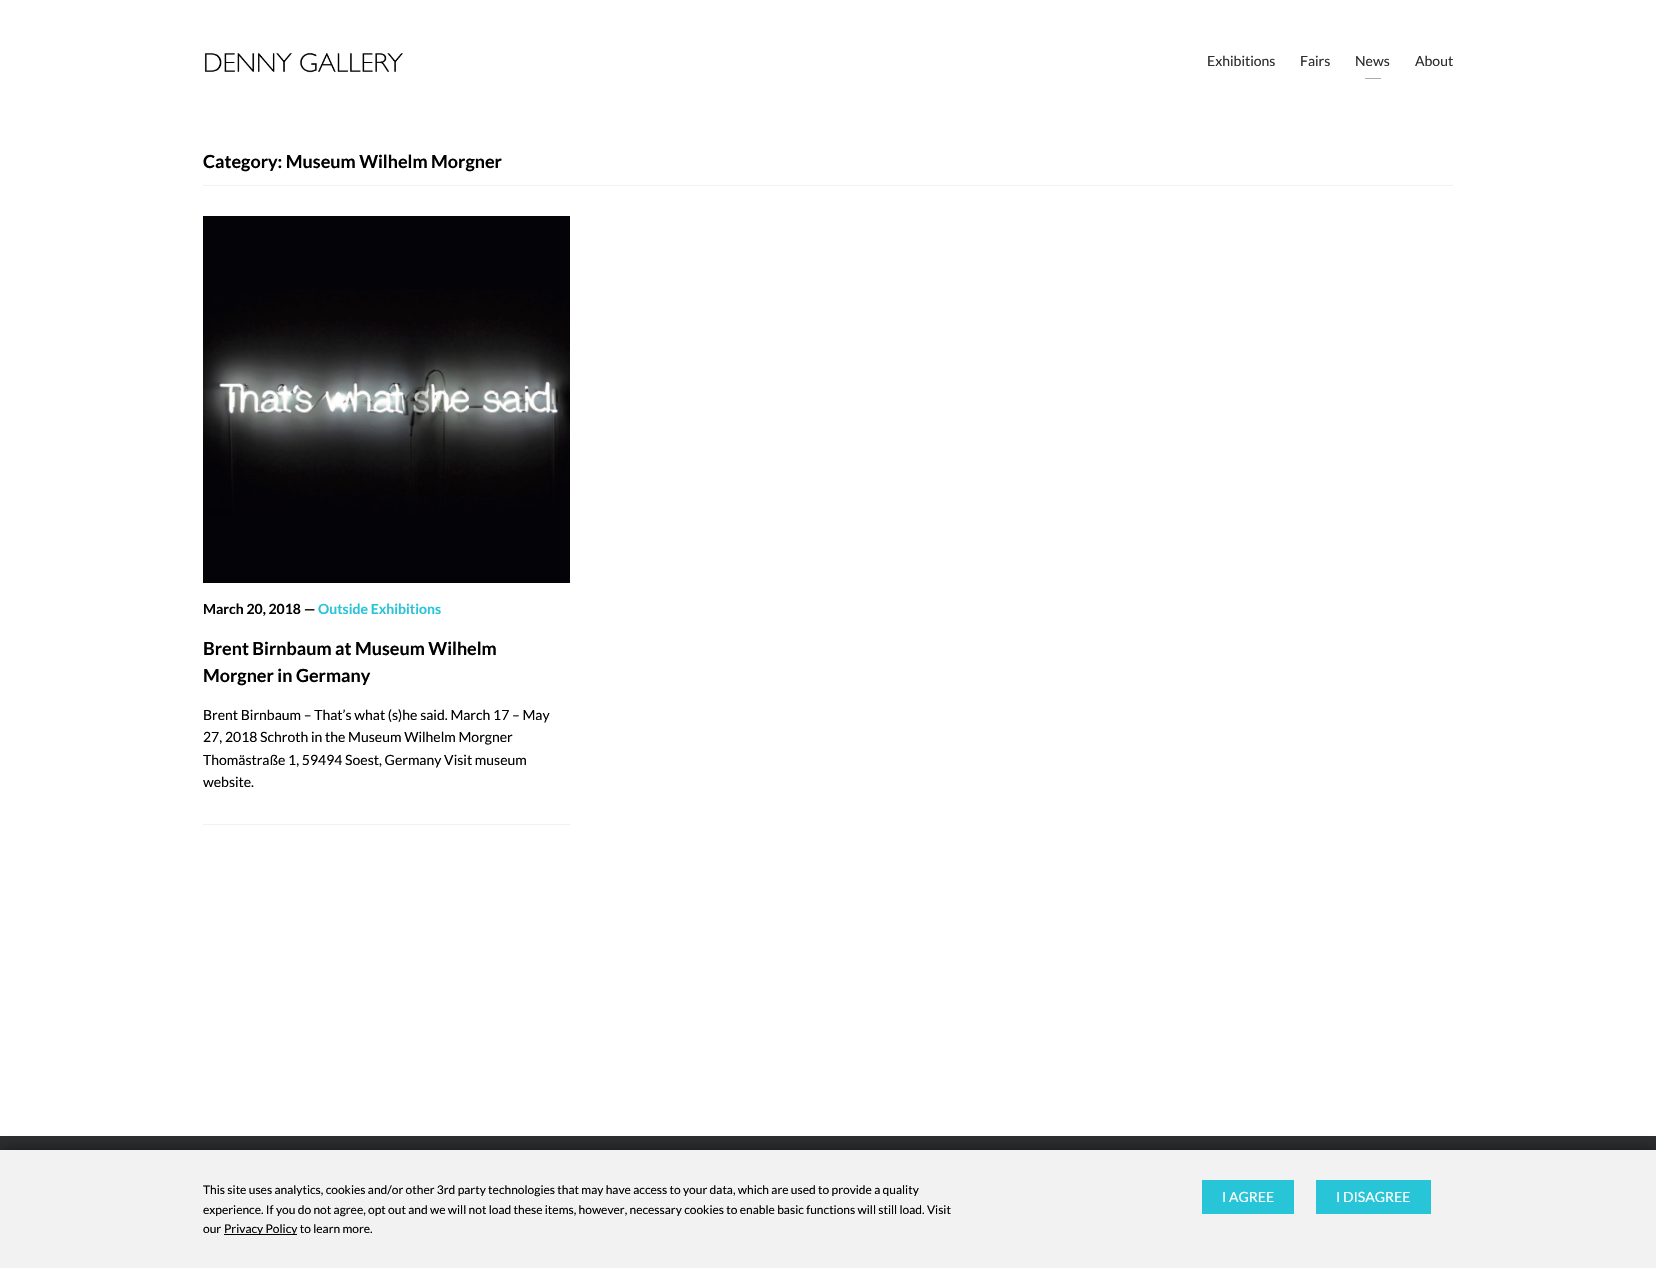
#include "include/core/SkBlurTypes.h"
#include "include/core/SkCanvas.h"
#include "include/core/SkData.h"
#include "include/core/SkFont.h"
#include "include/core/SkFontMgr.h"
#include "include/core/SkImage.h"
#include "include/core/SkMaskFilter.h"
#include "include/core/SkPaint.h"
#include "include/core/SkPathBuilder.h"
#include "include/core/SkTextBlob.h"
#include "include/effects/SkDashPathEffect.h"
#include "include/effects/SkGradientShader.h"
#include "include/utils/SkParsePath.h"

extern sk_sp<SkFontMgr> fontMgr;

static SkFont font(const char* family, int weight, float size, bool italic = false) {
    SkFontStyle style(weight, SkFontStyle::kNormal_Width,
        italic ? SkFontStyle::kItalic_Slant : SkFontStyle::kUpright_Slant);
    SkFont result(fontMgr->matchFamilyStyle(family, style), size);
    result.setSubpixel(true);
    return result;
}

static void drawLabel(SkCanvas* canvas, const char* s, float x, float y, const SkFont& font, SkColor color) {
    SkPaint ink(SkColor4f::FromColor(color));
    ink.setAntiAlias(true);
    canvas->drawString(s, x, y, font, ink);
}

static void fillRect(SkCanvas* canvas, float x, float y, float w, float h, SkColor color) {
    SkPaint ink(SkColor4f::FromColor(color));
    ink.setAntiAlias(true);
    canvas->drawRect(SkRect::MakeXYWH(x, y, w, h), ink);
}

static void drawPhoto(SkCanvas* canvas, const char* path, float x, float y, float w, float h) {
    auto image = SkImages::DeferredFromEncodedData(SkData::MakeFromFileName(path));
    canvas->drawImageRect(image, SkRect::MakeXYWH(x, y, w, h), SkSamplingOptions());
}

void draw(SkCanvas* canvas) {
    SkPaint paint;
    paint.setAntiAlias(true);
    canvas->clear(0xFFFFFFFF);
    drawPhoto(canvas, "assets/img1.png", 204, 53, 199, 20);
    SkFont font1 = font("Lato", 400, 14);
    drawLabel(canvas, "Exhibitions", 1207, 66, font1, 0xFF2C2D2E);
    drawLabel(canvas, "Fairs", 1300, 66, font1, 0xFF2C2D2E);
    drawLabel(canvas, "News", 1355, 66, font1, 0xFF2C2D2E);
    fillRect(canvas, 1365, 78, 16, 1, 0xFFABABAB);
    drawLabel(canvas, "About", 1415, 66, font1, 0xFF2C2D2E);
    fillRect(canvas, 203, 185, 1250, 1, 0xFFF1F1F1);
    SkFont font2 = font("Lato", 700, 18);
    drawLabel(canvas, "Category: Museum Wilhelm Morgner", 203, 168, font2, 0xFF000000);
    drawPhoto(canvas, "assets/img2.png", 203, 216, 367, 367);
    SkFont font3 = font("Lato", 700, 14);
    drawLabel(canvas, "March 20, 2018 —", 203, 614, font3, 0xFF000000);
    drawLabel(canvas, "Outside Exhibitions", 318, 614, font3, 0xFF28C4D8);
    drawLabel(canvas, "Brent Birnbaum at Museum Wilhelm", 203, 655, font2, 0xFF000000);
    drawLabel(canvas, "Morgner in Germany", 203, 682, font2, 0xFF000000);
    drawLabel(canvas, "Brent Birnbaum – That’s what (s)he said. March 17 – May", 203, 720, font1, 0xFF000000);
    drawLabel(canvas, "27, 2018 Schroth in the Museum Wilhelm Morgner", 203, 742, font1, 0xFF000000);
    drawLabel(canvas, "Thomästraße 1, 59494 Soest, Germany Visit museum", 203, 765, font1, 0xFF000000);
    drawLabel(canvas, "website.", 203, 787, font1, 0xFF000000);
    fillRect(canvas, 203, 824, 367, 1, 0xFFF1F1F1);
    fillRect(canvas, 0, 1136, 1656, 14, 0xFF2C2D2E);
    paint.setColor(0x80000000);
    paint.setMaskFilter(SkMaskFilter::MakeBlur(kNormal_SkBlurStyle, 6.5f));
    canvas->drawRect(SkRect::MakeXYWH(0, 1150, 1656, 118), paint);
    paint.setMaskFilter(nullptr);
    fillRect(canvas, 0, 1150, 1656, 118, 0xFFF2F2F2);
    SkFont font4 = font("Lato", 400, 12);
    drawLabel(canvas, "This site uses analytics, cookies and/or other 3rd party technologies that may have access to your data, which are used to provide a quality", 203, 1194, font4, 0xFF000000);
    drawLabel(canvas, "experience. If you do not agree, opt out and we will not load these items, however, necessary cookies to enable basic functions will still load. Visit", 203, 1214, font4, 0xFF000000);
    drawLabel(canvas, "our", 203, 1233, font4, 0xFF000000);
    fillRect(canvas, 224, 1234, 73, 1, 0xFF000000);
    drawLabel(canvas, "Privacy Policy to learn more.", 224, 1233, font4, 0xFF000000);
    fillRect(canvas, 1202, 1180, 92, 34, 0xFF28C4D8);
    drawLabel(canvas, "I AGREE", 1222, 1202, font1, 0xFFFFFFFF);
    fillRect(canvas, 1316, 1180, 115, 34, 0xFF28C4D8);
    drawLabel(canvas, "I DISAGREE", 1336, 1202, font1, 0xFFFFFFFF);
}
